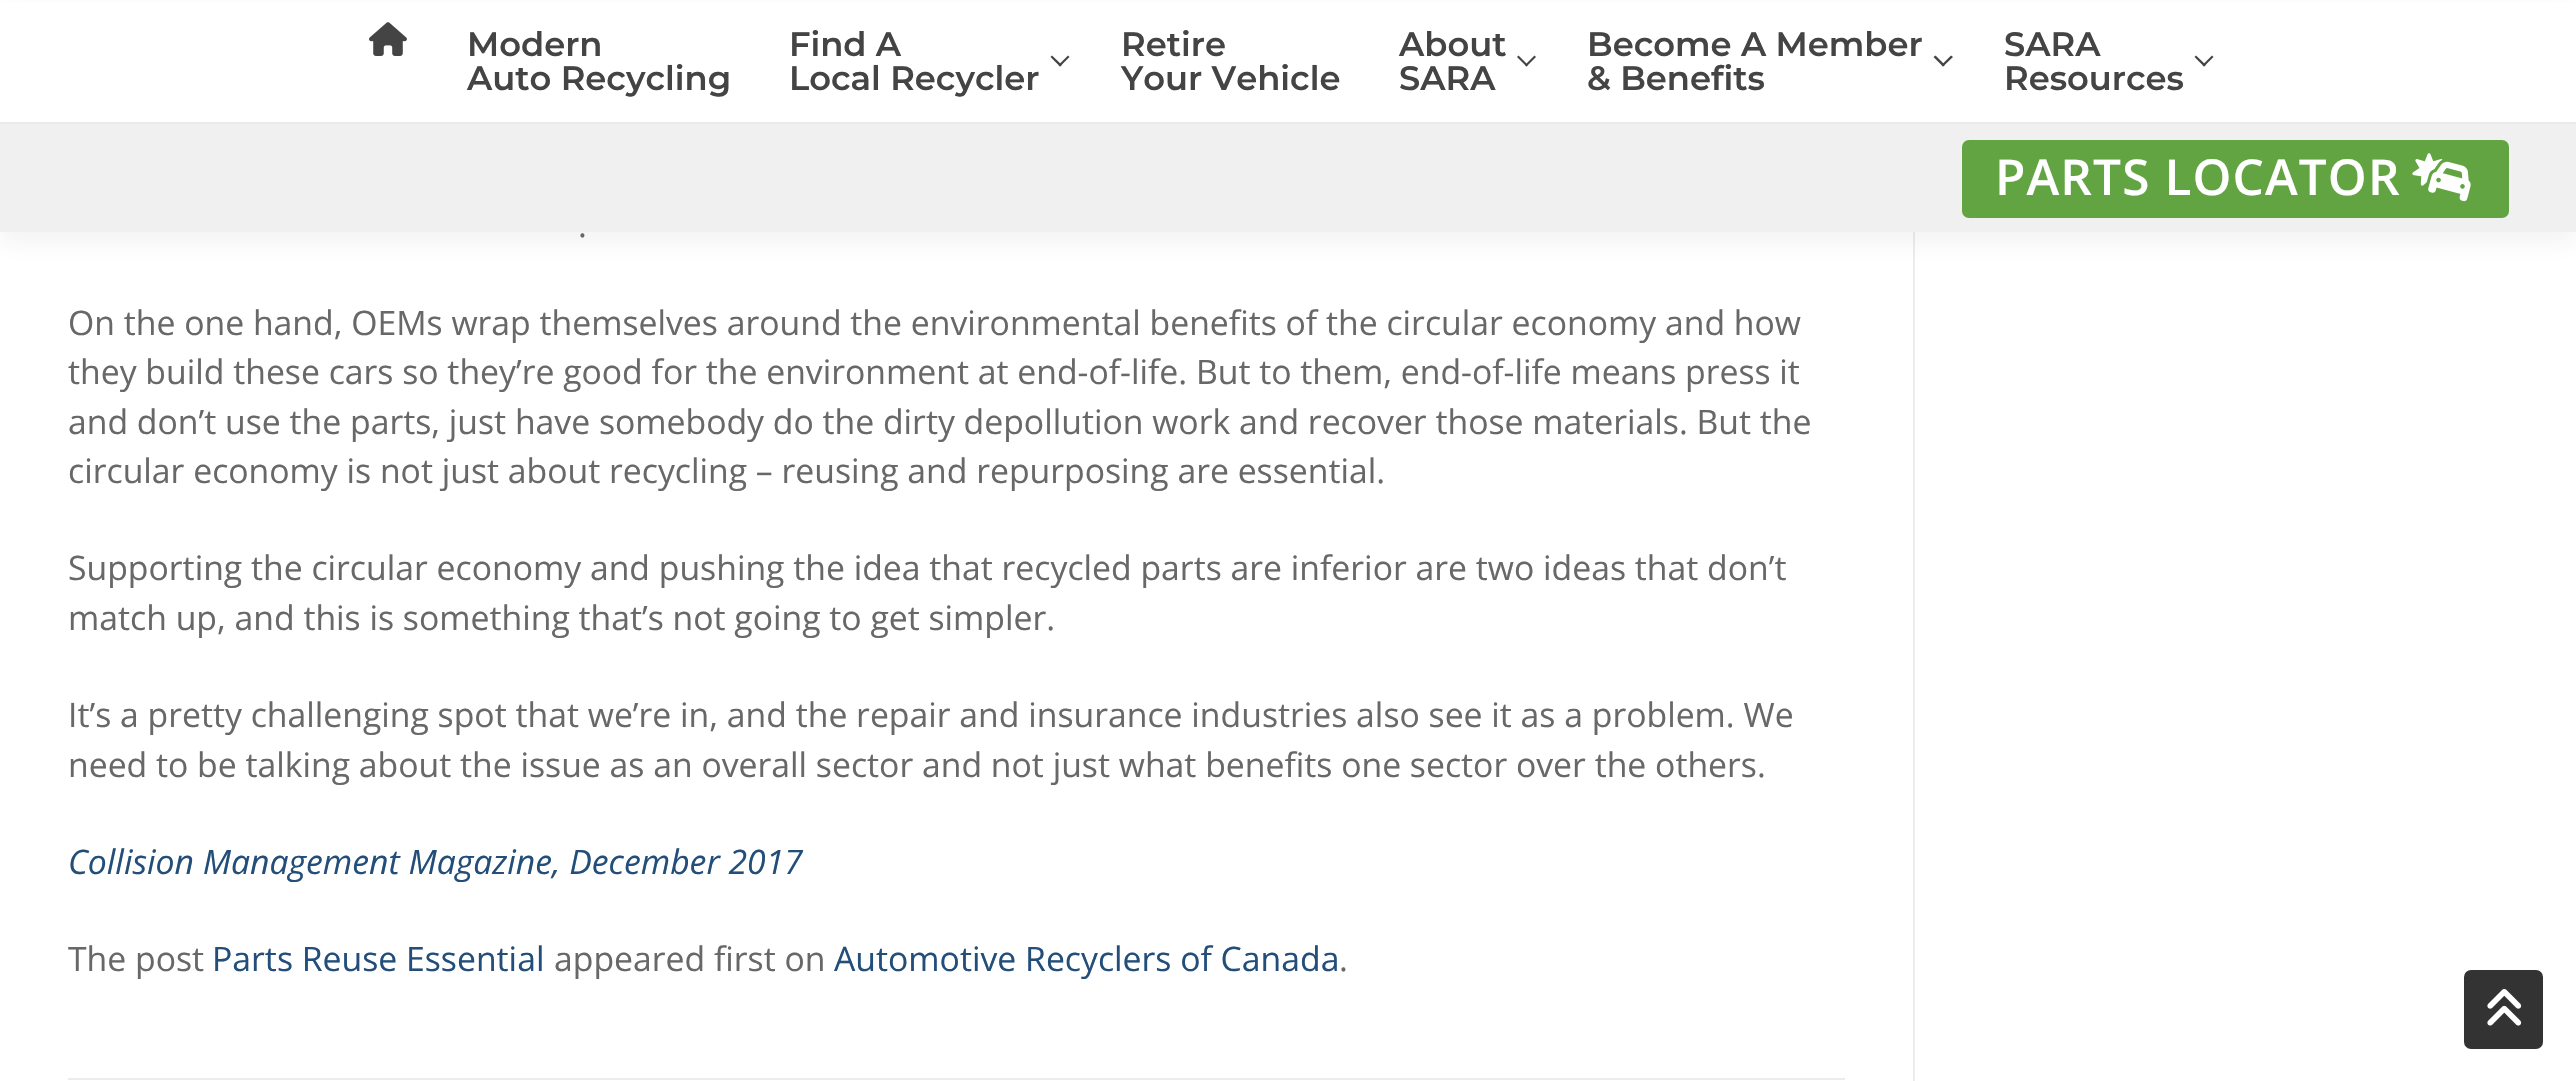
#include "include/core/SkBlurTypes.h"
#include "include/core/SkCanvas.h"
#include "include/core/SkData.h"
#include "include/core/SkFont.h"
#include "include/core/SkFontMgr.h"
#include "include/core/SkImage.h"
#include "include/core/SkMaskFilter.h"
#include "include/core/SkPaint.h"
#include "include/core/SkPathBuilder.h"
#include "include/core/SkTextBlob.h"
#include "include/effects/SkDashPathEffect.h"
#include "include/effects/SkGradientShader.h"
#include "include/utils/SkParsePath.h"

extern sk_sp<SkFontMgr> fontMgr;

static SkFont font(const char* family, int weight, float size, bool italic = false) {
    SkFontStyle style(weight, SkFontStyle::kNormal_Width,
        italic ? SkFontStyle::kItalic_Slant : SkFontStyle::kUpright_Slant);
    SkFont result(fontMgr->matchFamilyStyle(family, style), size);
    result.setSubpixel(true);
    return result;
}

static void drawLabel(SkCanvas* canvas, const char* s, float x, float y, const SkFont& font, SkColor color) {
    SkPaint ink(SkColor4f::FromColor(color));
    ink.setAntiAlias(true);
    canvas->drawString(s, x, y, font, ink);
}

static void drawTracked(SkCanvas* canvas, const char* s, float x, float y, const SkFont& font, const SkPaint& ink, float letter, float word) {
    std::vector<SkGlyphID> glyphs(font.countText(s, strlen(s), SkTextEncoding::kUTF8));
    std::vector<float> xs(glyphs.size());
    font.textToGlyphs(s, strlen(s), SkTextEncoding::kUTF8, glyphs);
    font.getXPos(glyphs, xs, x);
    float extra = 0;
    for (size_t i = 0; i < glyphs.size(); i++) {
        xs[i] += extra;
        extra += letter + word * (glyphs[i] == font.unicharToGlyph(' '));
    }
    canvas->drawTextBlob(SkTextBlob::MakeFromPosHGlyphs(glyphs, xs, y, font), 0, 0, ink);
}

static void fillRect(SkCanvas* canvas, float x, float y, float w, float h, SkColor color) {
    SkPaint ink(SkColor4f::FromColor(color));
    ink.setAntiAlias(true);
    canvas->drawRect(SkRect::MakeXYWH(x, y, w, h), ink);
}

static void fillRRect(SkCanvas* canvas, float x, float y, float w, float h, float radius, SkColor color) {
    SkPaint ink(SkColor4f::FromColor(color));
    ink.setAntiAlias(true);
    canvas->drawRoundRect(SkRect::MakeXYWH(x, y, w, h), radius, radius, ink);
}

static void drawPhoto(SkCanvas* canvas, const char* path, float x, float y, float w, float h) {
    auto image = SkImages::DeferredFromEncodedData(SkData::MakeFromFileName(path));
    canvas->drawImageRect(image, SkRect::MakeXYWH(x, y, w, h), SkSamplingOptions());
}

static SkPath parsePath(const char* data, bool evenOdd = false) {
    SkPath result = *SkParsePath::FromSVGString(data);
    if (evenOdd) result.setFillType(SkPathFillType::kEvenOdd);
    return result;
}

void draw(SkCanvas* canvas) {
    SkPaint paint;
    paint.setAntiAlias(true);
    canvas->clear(0xFFFFFFFF);
    fillRect(canvas, 1913, 232, 2, 849, 0xFFEAECEE);
    paint.setColor(0x0F323232);
    paint.setMaskFilter(SkMaskFilter::MakeBlur(kNormal_SkBlurStyle, 11));
    canvas->drawRect(SkRect::MakeXYWH(0, 11, 2576, 232), paint);
    paint.setMaskFilter(nullptr);
    fillRect(canvas, 0, 2, 2576, 120, 0xFFFFFFFF);
    fillRect(canvas, 0, 122, 2576, 2, 0xFFEAEAEA);
    drawPhoto(canvas, "assets/img1.png", 369, 22, 38, 34);
    SkFont font1 = font("Montserrat", 600, 33.75f);
    drawLabel(canvas, "Modern", 467, 56, font1, 0xFF444444);
    drawLabel(canvas, "Auto Recycling", 467, 90, font1, 0xFF444444);
    drawLabel(canvas, "Find A", 789, 56, font1, 0xFF444444);
    paint.setColor(0xFF444444);
    canvas->drawPath(parsePath("M1060 66.5L1050.5 57L1052 55.5L1062 65Z"), paint);
    canvas->drawPath(parsePath("M1060 66.5L1058.5 65L1068 55.5L1069.5 57Z"), paint);
    drawLabel(canvas, "Local Recycler", 789, 90, font1, 0xFF444444);
    drawLabel(canvas, "Retire", 1121, 56, font1, 0xFF444444);
    drawLabel(canvas, "Your Vehicle", 1121, 90, font1, 0xFF444444);
    drawLabel(canvas, "About", 1399, 56, font1, 0xFF444444);
    canvas->drawPath(parsePath("M1526.5 66.5L1517 57L1518.5 55.5L1528 65Z"), paint);
    canvas->drawPath(parsePath("M1526.5 66.5L1525 65L1534.5 55.5L1536 57Z"), paint);
    drawLabel(canvas, "SARA", 1399, 90, font1, 0xFF444444);
    drawLabel(canvas, "Become A Member", 1587, 56, font1, 0xFF444444);
    canvas->drawPath(parsePath("M1943 66.5L1933.5 57L1935.5 55.5L1945 65Z"), paint);
    canvas->drawPath(parsePath("M1943 66.5L1941.5 65L1951 55.5L1953 57Z"), paint);
    drawLabel(canvas, "& Benefits", 1587, 90, font1, 0xFF444444);
    drawLabel(canvas, "SARA", 2004, 56, font1, 0xFF444444);
    canvas->drawPath(parsePath("M2204 66.5L2194.5 57L2196 55.5L2206 65Z"), paint);
    canvas->drawPath(parsePath("M2204 66.5L2202.5 65L2212 55.5L2213.5 57Z"), paint);
    drawLabel(canvas, "Resources", 2004, 90, font1, 0xFF444444);
    fillRect(canvas, 0, 124, 2576, 108, 0xFFF0F0F0);
    fillRRect(canvas, 1962, 140, 547, 78, 7, 0xFF62A442);
    SkFont font2 = font("Open Sans", 600, 49.5f);
    paint.setColor(0xFFFFFFFF);
    drawTracked(canvas, "PARTS LOCATOR", 1995, 195, font2, paint, 1.1f, 0);
    drawPhoto(canvas, "assets/img2.png", 2412, 153, 59, 49);
    SkFont font3 = font("Open Sans", 400, 33.75f);
    drawLabel(canvas, ".", 578, 237, font3, 0xFF686868);
    drawLabel(canvas, "On the one hand, OEMs wrap themselves around the environmental benefits of the circular economy and how", 68, 335, font3, 0xFF686868);
    drawLabel(canvas, "they build these cars so they’re good for the environment at end-of-life. But to them, end-of-life means press it", 68, 384, font3, 0xFF686868);
    drawLabel(canvas, "and don’t use the parts, just have somebody do the dirty depollution work and recover those materials. But the", 68, 434, font3, 0xFF686868);
    drawLabel(canvas, "circular economy is not just about recycling – reusing and repurposing are essential.", 68, 483, font3, 0xFF686868);
    drawLabel(canvas, "Supporting the circular economy and pushing the idea that recycled parts are inferior are two ideas that don’t", 68, 580, font3, 0xFF686868);
    drawLabel(canvas, "match up, and this is something that’s not going to get simpler.", 68, 630, font3, 0xFF686868);
    drawLabel(canvas, "It’s a pretty challenging spot that we’re in, and the repair and insurance industries also see it as a problem. We", 68, 727, font3, 0xFF686868);
    drawLabel(canvas, "need to be talking about the issue as an overall sector and not just what benefits one sector over the others.", 68, 777, font3, 0xFF686868);
    SkFont font4 = font("Open Sans", 400, 33.75f, true);
    drawLabel(canvas, "Collision Management Magazine, December 2017", 68, 874, font4, 0xFF234E7A);
    drawLabel(canvas, "The post", 68, 971, font3, 0xFF686868);
    drawLabel(canvas, "Parts Reuse Essential", 212, 971, font3, 0xFF234E7A);
    drawLabel(canvas, "appeared first on", 554, 971, font3, 0xFF686868);
    drawLabel(canvas, "Automotive Recyclers of Canada", 834, 971, font3, 0xFF234E7A);
    drawLabel(canvas, ".", 1339, 971, font3, 0xFF686868);
    fillRect(canvas, 68, 1078, 1777, 2, 0xFFEAECEE);
    fillRRect(canvas, 2464, 970, 79, 79, 7, 0xFF333333);
    drawPhoto(canvas, "assets/img3.png", 2487, 989, 35, 37);
}
